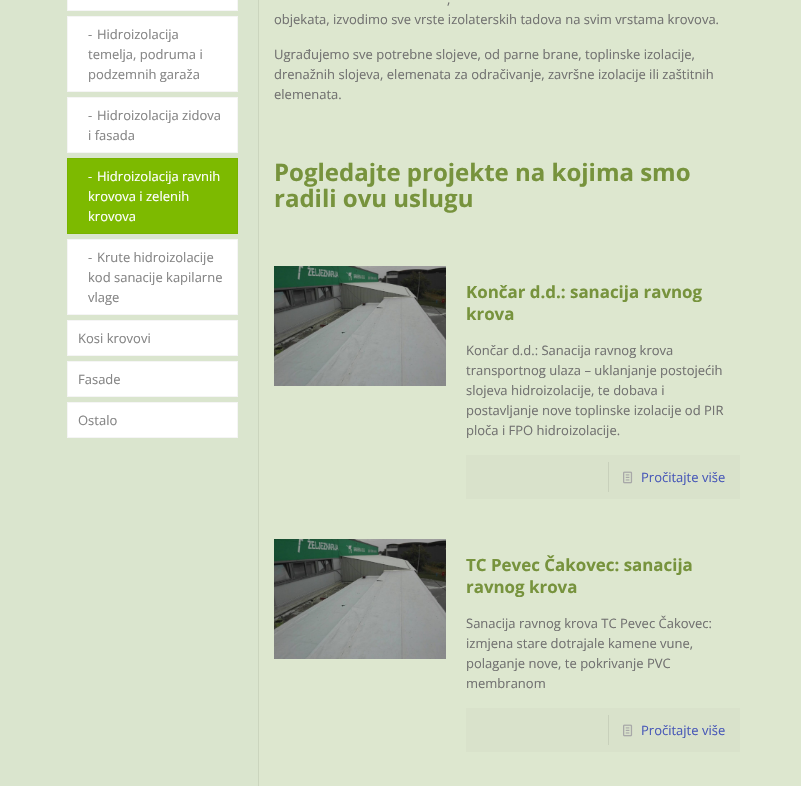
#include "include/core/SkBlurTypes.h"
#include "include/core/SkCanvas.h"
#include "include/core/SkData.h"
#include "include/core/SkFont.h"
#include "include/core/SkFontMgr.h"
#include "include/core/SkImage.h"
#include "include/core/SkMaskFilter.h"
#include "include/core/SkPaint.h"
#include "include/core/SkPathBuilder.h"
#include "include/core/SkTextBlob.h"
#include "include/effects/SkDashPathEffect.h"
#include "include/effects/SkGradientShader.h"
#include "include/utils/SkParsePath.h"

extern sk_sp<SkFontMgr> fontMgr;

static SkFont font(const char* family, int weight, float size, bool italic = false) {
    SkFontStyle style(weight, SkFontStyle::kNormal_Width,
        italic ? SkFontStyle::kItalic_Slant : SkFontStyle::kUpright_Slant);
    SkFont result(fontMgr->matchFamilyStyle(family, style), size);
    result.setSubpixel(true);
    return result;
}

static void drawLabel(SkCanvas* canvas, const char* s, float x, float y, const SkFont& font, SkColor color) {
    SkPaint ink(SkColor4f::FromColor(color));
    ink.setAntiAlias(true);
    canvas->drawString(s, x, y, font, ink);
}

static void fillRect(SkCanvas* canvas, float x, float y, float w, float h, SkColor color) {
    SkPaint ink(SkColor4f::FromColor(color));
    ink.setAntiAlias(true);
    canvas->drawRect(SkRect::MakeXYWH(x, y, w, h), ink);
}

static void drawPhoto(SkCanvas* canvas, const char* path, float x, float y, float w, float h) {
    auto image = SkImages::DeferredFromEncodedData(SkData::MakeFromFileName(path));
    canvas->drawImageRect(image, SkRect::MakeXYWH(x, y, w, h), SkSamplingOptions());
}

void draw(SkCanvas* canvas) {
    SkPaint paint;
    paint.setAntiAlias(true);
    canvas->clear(0xFFDDE7CF);
    fillRect(canvas, 258, 0, 1, 786, 0xFFCBD5BE);
    fillRect(canvas, 0, 0, 258, 786, 0xFFDAE5CE);
    paint.setColor(0xFFFFFFFF);
    canvas->drawRect(SkRect::MakeXYWH(67.5f, -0.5f, 170, 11), paint);
    paint.setStroke(true);
    paint.setStrokeWidth(1);
    paint.setColor(0xFFF5F5F5);
    canvas->drawRect(SkRect::MakeXYWH(67.5f, -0.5f, 170, 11), paint);
    paint.setStroke(false);
    paint.setColor(0xFFFFFFFF);
    canvas->drawRect(SkRect::MakeXYWH(67.5f, 16.5f, 170, 75), paint);
    paint.setStroke(true);
    paint.setColor(0xFFF5F5F5);
    canvas->drawRect(SkRect::MakeXYWH(67.5f, 16.5f, 170, 75), paint);
    SkFont font1 = font("Open Sans", 400, 13);
    drawLabel(canvas, "-", 88, 39, font1, 0xFF858585);
    drawLabel(canvas, "Hidroizolacija", 97, 39, font1, 0xFF858585);
    drawLabel(canvas, "temelja, podruma i", 88, 59, font1, 0xFF858585);
    drawLabel(canvas, "podzemnih garaža", 88, 79, font1, 0xFF858585);
    paint.setStroke(false);
    paint.setColor(0xFFFFFFFF);
    canvas->drawRect(SkRect::MakeXYWH(67.5f, 97.5f, 170, 55), paint);
    paint.setStroke(true);
    paint.setColor(0xFFF5F5F5);
    canvas->drawRect(SkRect::MakeXYWH(67.5f, 97.5f, 170, 55), paint);
    drawLabel(canvas, "-", 88, 120, font1, 0xFF858585);
    drawLabel(canvas, "Hidroizolacija zidova", 97, 120, font1, 0xFF858585);
    drawLabel(canvas, "i fasada", 88, 140, font1, 0xFF858585);
    paint.setStroke(false);
    paint.setColor(0xFF7DBA00);
    canvas->drawRect(SkRect::MakeXYWH(67.5f, 158.5f, 170, 75), paint);
    paint.setStroke(true);
    paint.setColor(0xFF78B300);
    canvas->drawRect(SkRect::MakeXYWH(67.5f, 158.5f, 170, 75), paint);
    drawLabel(canvas, "-", 88, 181, font1, 0xFFFFFFFF);
    drawLabel(canvas, "Hidroizolacija ravnih", 97, 181, font1, 0xFFFFFFFF);
    drawLabel(canvas, "krovova i zelenih", 88, 201, font1, 0xFFFFFFFF);
    drawLabel(canvas, "krovova", 88, 221, font1, 0xFFFFFFFF);
    paint.setStroke(false);
    paint.setColor(0xFFFFFFFF);
    canvas->drawRect(SkRect::MakeXYWH(67.5f, 239.5f, 170, 75), paint);
    paint.setStroke(true);
    paint.setColor(0xFFF5F5F5);
    canvas->drawRect(SkRect::MakeXYWH(67.5f, 239.5f, 170, 75), paint);
    drawLabel(canvas, "-", 88, 262, font1, 0xFF858585);
    drawLabel(canvas, "Krute hidroizolacije", 97, 262, font1, 0xFF858585);
    drawLabel(canvas, "kod sanacije kapilarne", 88, 282, font1, 0xFF858585);
    drawLabel(canvas, "vlage", 88, 302, font1, 0xFF858585);
    paint.setStroke(false);
    paint.setColor(0xFFFFFFFF);
    canvas->drawRect(SkRect::MakeXYWH(67.5f, 320.5f, 170, 35), paint);
    paint.setStroke(true);
    paint.setColor(0xFFF5F5F5);
    canvas->drawRect(SkRect::MakeXYWH(67.5f, 320.5f, 170, 35), paint);
    drawLabel(canvas, "Kosi krovovi", 78, 343, font1, 0xFF858585);
    paint.setStroke(false);
    paint.setColor(0xFFFFFFFF);
    canvas->drawRect(SkRect::MakeXYWH(67.5f, 361.5f, 170, 35), paint);
    paint.setStroke(true);
    paint.setColor(0xFFF5F5F5);
    canvas->drawRect(SkRect::MakeXYWH(67.5f, 361.5f, 170, 35), paint);
    drawLabel(canvas, "Fasade", 78, 384, font1, 0xFF858585);
    paint.setStroke(false);
    paint.setColor(0xFFFFFFFF);
    canvas->drawRect(SkRect::MakeXYWH(67.5f, 402.5f, 170, 35), paint);
    paint.setStroke(true);
    paint.setColor(0xFFF5F5F5);
    canvas->drawRect(SkRect::MakeXYWH(67.5f, 402.5f, 170, 35), paint);
    drawLabel(canvas, "Ostalo", 78, 425, font1, 0xFF858585);
    drawLabel(canvas, ",", 447, 4, font1, 0xFF727271);
    drawLabel(canvas, "objekata, izvodimo sve vrste izolaterskih tadova na svim vrstama krovova.", 274, 24, font1, 0xFF727271);
    drawLabel(canvas, "Ugrađujemo sve potrebne slojeve, od parne brane, toplinske izolacije,", 274, 59, font1, 0xFF727271);
    drawLabel(canvas, "drenažnih slojeva, elemenata za odračivanje, završne izolacije ili zaštitnih", 274, 79, font1, 0xFF727271);
    drawLabel(canvas, "elemenata.", 274, 99, font1, 0xFF727271);
    SkFont font2 = font("Open Sans", 700, 24);
    drawLabel(canvas, "Pogledajte projekte na kojima smo", 274, 181, font2, 0xFF77933D);
    drawLabel(canvas, "radili ovu uslugu", 274, 207, font2, 0xFF77933D);
    drawPhoto(canvas, "assets/img1.png", 274, 266, 172, 120);
    SkFont font3 = font("Open Sans", 700, 16.9f);
    drawLabel(canvas, "Končar d.d.: sanacija ravnog", 466, 298, font3, 0xFF77933D);
    drawLabel(canvas, "krova", 466, 320, font3, 0xFF77933D);
    drawLabel(canvas, "Končar d.d.: Sanacija ravnog krova", 466, 355, font1, 0xFF727271);
    drawLabel(canvas, "transportnog ulaza – uklanjanje postojećih", 466, 375, font1, 0xFF727271);
    drawLabel(canvas, "slojeva hidroizolacije, te dobava i", 466, 395, font1, 0xFF727271);
    drawLabel(canvas, "postavljanje nove toplinske izolacije od PIR", 466, 415, font1, 0xFF727271);
    drawLabel(canvas, "ploča i FPO hidroizolacije.", 466, 435, font1, 0xFF727271);
    fillRect(canvas, 466, 455, 274, 44, 0xFFD9E2CB);
    fillRect(canvas, 608, 462, 1, 30, 0xFFC8D0BB);
    drawPhoto(canvas, "assets/img2.png", 623, 471, 10, 13);
    drawLabel(canvas, "Pročitajte više", 641, 482, font1, 0xFF4A5AB8);
    drawPhoto(canvas, "assets/img1.png", 274, 539, 172, 120);
    drawLabel(canvas, "TC Pevec Čakovec: sanacija", 466, 571, font3, 0xFF77933D);
    drawLabel(canvas, "ravnog krova", 466, 593, font3, 0xFF77933D);
    drawLabel(canvas, "Sanacija ravnog krova TC Pevec Čakovec:", 466, 628, font1, 0xFF727271);
    drawLabel(canvas, "izmjena stare dotrajale kamene vune,", 466, 648, font1, 0xFF727271);
    drawLabel(canvas, "polaganje nove, te pokrivanje PVC", 466, 668, font1, 0xFF727271);
    drawLabel(canvas, "membranom", 466, 688, font1, 0xFF727271);
    fillRect(canvas, 466, 708, 274, 44, 0xFFD9E2CB);
    fillRect(canvas, 608, 715, 1, 30, 0xFFC8D0BB);
    drawPhoto(canvas, "assets/img2.png", 623, 724, 10, 13);
    drawLabel(canvas, "Pročitajte više", 641, 735, font1, 0xFF4A5AB8);
}
